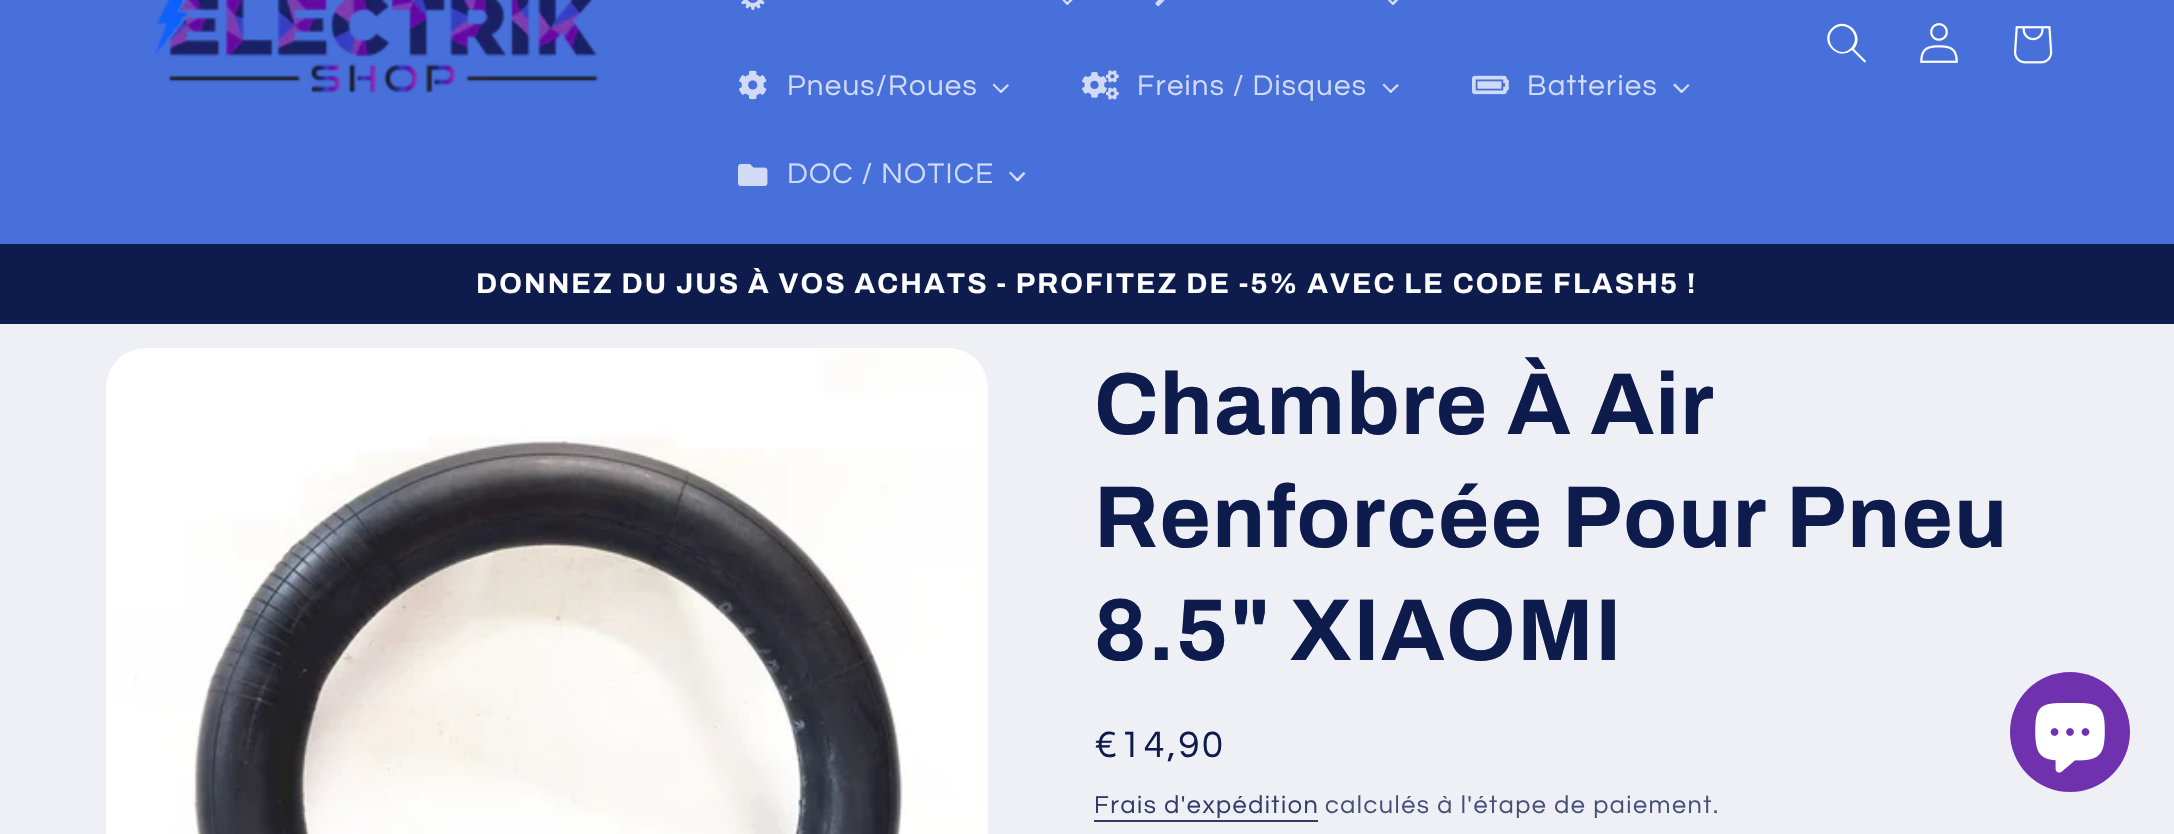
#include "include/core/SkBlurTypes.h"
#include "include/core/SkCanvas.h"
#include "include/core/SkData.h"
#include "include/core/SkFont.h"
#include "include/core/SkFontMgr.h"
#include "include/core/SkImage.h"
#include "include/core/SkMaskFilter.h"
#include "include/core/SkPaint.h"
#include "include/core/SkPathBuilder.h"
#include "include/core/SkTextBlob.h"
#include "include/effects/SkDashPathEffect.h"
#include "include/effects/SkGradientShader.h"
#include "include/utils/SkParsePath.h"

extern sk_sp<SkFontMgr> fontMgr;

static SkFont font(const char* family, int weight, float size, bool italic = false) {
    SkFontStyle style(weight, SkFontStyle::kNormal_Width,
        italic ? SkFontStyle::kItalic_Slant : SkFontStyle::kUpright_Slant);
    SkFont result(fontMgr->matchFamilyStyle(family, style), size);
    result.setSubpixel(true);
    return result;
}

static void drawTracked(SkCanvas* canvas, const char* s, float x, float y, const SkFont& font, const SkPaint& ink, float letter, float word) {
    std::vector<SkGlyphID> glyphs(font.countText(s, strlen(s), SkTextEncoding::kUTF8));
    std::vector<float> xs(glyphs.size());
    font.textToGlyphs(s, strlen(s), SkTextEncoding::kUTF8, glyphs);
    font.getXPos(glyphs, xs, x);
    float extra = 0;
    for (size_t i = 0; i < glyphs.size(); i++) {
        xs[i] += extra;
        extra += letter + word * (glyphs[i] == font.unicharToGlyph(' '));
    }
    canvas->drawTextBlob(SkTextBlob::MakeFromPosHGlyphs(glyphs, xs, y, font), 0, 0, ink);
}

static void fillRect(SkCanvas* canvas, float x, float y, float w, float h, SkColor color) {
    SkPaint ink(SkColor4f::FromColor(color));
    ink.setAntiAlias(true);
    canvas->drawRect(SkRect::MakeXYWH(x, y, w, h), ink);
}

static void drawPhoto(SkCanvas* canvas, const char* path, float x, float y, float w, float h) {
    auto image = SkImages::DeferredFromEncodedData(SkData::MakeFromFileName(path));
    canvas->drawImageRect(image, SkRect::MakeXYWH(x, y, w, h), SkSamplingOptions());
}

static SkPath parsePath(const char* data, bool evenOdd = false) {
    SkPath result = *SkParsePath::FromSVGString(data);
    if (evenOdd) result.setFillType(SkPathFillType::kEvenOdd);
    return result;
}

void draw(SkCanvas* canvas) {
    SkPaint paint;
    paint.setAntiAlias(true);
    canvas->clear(0xFFEFF0F5);
    fillRect(canvas, 0, 0, 2174, 244, 0xFF4770DB);
    drawPhoto(canvas, "assets/img1.png", 154, 0, 445, 93);
    paint.setColor(0xFFFFFFFF);
    canvas->drawPath(parsePath("M1851 48C1840 60 1822 42 1833 30C1845 18 1863 36 1851 48M1852 50C1838 62 1818 41 1832 28C1846 15 1866 35 1854 49L1866 61C1866 62 1865 63 1864 62Z", true), paint);
    drawPhoto(canvas, "assets/img2.png", 1920, 23, 38, 40);
    drawPhoto(canvas, "assets/img3.png", 2014, 26, 39, 38);
    drawPhoto(canvas, "assets/img4.png", 741, 0, 24, 10);
    paint.setColor(0xFFD1DBF6);
    canvas->drawPath(parsePath("M1073.5-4.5L1075.5-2.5L1067.5 5L1066 3.5Z"), paint);
    paint.setColor(0xBFFFFFFF);
    canvas->drawPath(parsePath("M1060.5-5L1068.5 3.5L1067 5L1059-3Z"), paint);
    drawPhoto(canvas, "assets/img5.png", 1155, 0, 10, 7);
    paint.setColor(0xFFD1DBF6);
    canvas->drawPath(parsePath("M1399-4.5L1401-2.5L1393.5 5L1391.5 3.5Z"), paint);
    paint.setColor(0xBFFFFFFF);
    canvas->drawPath(parsePath("M1386-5L1394 3.5L1392.5 5L1384.5-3Z"), paint);
    drawPhoto(canvas, "assets/img6.png", 739, 70, 28, 30);
    SkFont font1 = font("Questrial", 400, 29.5f);
    paint.setColor(0xFFD1DBF6);
    drawTracked(canvas, "Pneus/Roues", 787, 95, font1, paint, 1.25f, 0);
    canvas->drawPath(parsePath("M1007.5 84L1009 85.5L1001.5 93L999.5 91.5Z"), paint);
    paint.setColor(0xBFFFFFFF);
    canvas->drawPath(parsePath("M994 83.5L1002 91.5L1000.5 93L992.5 85Z"), paint);
    drawPhoto(canvas, "assets/img7.png", 1082, 70, 37, 30);
    paint.setColor(0xFFD1DBF6);
    drawTracked(canvas, "Freins / Disques", 1137, 95, font1, paint, 1.25f, 0);
    canvas->drawPath(parsePath("M1397 84L1399 85.5L1391 93L1389.5 91.5Z"), paint);
    paint.setColor(0xBFFFFFFF);
    canvas->drawPath(parsePath("M1384 83.5L1392 91.5L1390.5 93L1382.5 85Z"), paint);
    drawPhoto(canvas, "assets/img8.png", 1472, 75, 37, 20);
    paint.setColor(0xFFD1DBF6);
    drawTracked(canvas, "Batteries", 1527, 95, font1, paint, 1.25f, 0);
    canvas->drawPath(parsePath("M1688 84L1689.5 85.5L1682 93L1680.5 91.5Z"), paint);
    paint.setColor(0xBFFFFFFF);
    canvas->drawPath(parsePath("M1675 83.5L1683 91.5L1681 93L1673 85Z"), paint);
    drawPhoto(canvas, "assets/img9.png", 738, 163, 30, 23);
    paint.setColor(0xFFD1DBF6);
    drawTracked(canvas, "DOC / NOTICE", 787, 183, font1, paint, 1.25f, 0);
    canvas->drawPath(parsePath("M1023.5 172L1025.5 173.5L1018 181.5L1016 179.5Z"), paint);
    paint.setColor(0xBFFFFFFF);
    canvas->drawPath(parsePath("M1010.5 171.5L1018.5 179.5L1017 181.5L1009 173Z"), paint);
    fillRect(canvas, 0, 244, 2174, 80, 0xFF0E1B4D);
    SkFont font2 = font("Archivo", 700, 28.6f);
    paint.setColor(0xFFFFFFFF);
    drawTracked(canvas, "DONNEZ DU JUS À VOS ACHATS - PROFITEZ DE -5% AVEC LE CODE FLASH5 !", 476, 293, font2, paint, 2.1f, 0);
    drawPhoto(canvas, "assets/img10.png", 106, 348, 882, 486);
    SkFont font3 = font("Archivo", 700, 88);
    paint.setColor(0xFF0E1B4D);
    drawTracked(canvas, "Chambre À Air", 1094, 434, font3, paint, 1.3f, 0);
    drawTracked(canvas, "Renforcée Pour Pneu", 1094, 547, font3, paint, 1.3f, 0);
    drawTracked(canvas, "8.5\" XIAOMI", 1094, 660, font3, paint, 1.3f, 0);
    SkFont font4 = font("Questrial", 400, 38);
    drawTracked(canvas, "€14,90", 1094, 757, font4, paint, 2.75f, 0);
    SkFont font5 = font("Questrial", 400, 25.25f);
    paint.setColor(0xFF303B66);
    drawTracked(canvas, "Frais d'expédition", 1094, 813, font5, paint, 1.5f, 0);
    fillRect(canvas, 1094, 820, 224, 2, 0xFF303B66);
    paint.setColor(0xFF465077);
    drawTracked(canvas, "calculés à l'étape de paiement.", 1325, 813, font5, paint, 1.5f, 0);
    paint.setColor(0xFF7031AF);
    canvas->drawCircle(2070, 732, 60, paint);
    drawPhoto(canvas, "assets/img11.png", 2035, 703, 70, 70);
}
